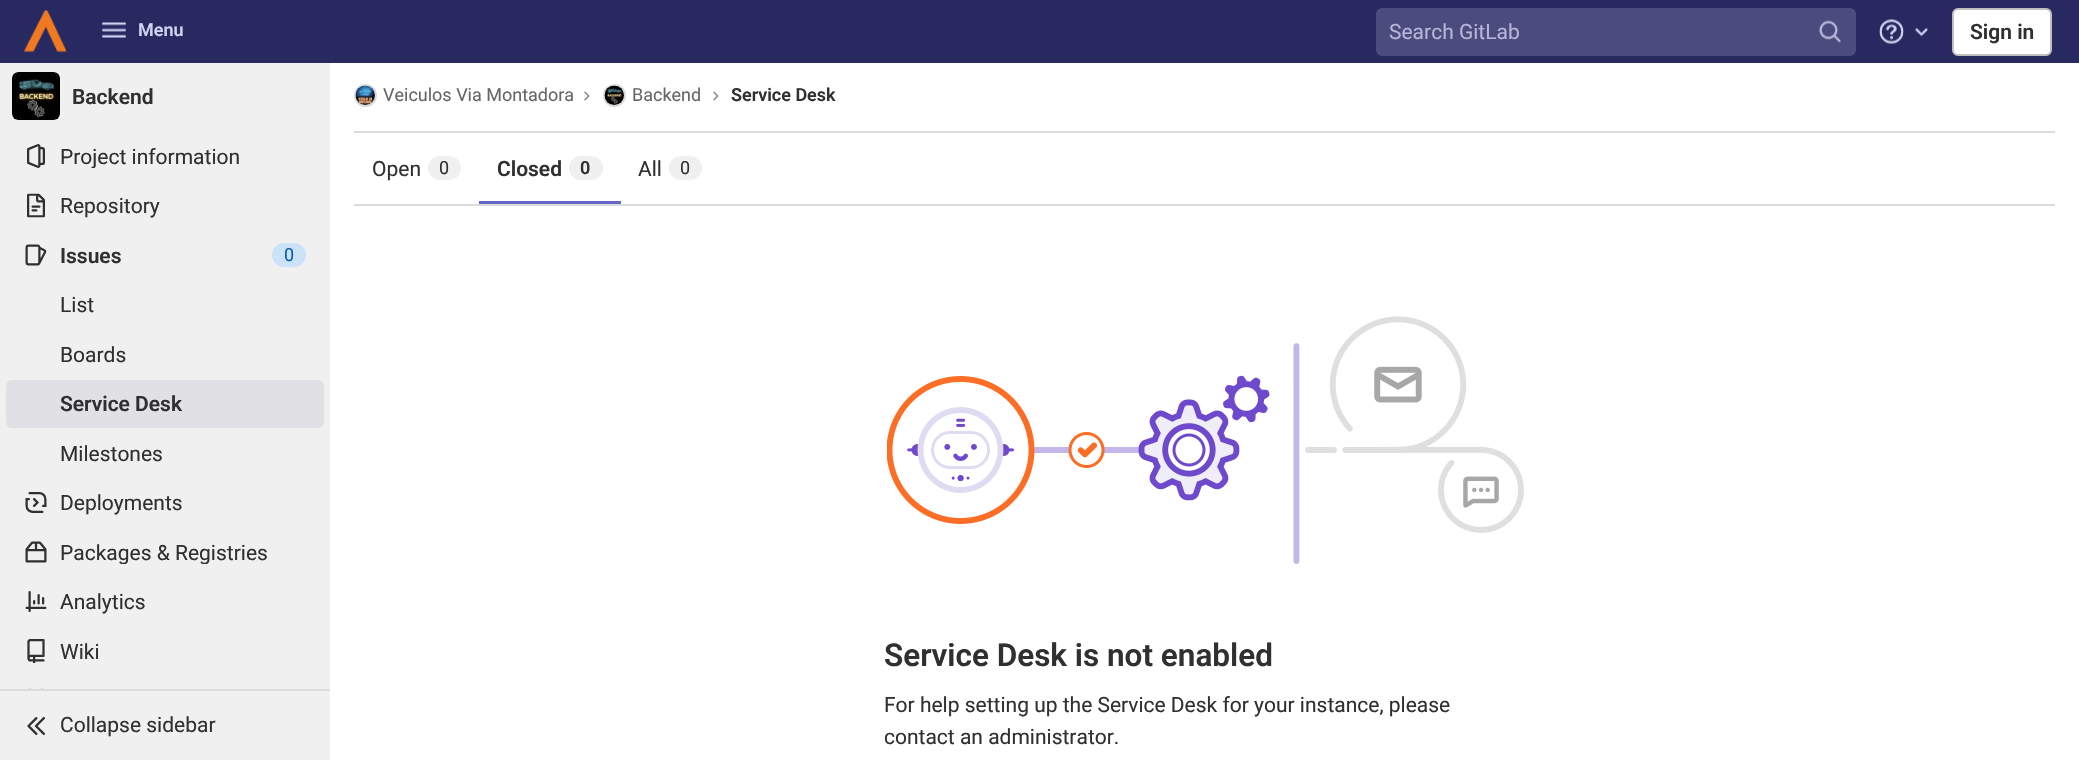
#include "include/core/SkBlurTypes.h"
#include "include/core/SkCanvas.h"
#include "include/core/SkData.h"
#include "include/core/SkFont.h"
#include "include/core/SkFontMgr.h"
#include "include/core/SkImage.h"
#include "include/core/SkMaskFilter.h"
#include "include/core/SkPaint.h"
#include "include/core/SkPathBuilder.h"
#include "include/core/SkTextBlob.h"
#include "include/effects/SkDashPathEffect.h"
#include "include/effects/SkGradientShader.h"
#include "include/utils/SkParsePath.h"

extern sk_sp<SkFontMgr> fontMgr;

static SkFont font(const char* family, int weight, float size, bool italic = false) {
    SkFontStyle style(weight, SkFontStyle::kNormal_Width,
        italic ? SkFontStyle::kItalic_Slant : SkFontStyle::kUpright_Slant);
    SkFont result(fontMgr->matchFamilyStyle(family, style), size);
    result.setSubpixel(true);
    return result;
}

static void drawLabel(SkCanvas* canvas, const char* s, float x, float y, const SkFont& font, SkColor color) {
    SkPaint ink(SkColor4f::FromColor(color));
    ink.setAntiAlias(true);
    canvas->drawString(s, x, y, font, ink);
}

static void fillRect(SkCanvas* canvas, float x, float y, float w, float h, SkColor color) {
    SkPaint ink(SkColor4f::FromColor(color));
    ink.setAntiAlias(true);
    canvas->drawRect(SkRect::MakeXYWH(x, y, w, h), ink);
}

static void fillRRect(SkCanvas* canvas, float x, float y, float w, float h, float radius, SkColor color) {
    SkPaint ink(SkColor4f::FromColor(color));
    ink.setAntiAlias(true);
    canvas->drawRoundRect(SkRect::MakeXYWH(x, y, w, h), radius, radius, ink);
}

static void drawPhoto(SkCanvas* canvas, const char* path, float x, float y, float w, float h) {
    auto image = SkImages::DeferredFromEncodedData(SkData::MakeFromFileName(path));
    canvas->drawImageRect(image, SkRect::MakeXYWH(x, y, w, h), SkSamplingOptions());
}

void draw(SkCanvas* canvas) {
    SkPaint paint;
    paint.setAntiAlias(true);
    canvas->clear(0xFFFFFFFF);
    fillRect(canvas, 0, 0, 2079, 63, 0xFF292961);
    drawPhoto(canvas, "assets/img1.png", 24, 10, 42, 43);
    drawPhoto(canvas, "assets/img2.png", 102, 22, 24, 16);
    SkFont font1 = font("Roboto", 600, 18);
    drawLabel(canvas, "Menu", 138, 36, font1, 0xFFD1D1F0);
    fillRRect(canvas, 1376, 8, 480, 48, 6, 0xFF4B4B7E);
    SkFont font2 = font("Roboto", 400, 21);
    drawLabel(canvas, "Search GitLab", 1389, 39, font2, 0xFFB6B6D9);
    drawPhoto(canvas, "assets/img3.png", 1819, 20, 22, 23);
    drawPhoto(canvas, "assets/img4.png", 1879, 19, 25, 25);
    drawPhoto(canvas, "assets/img5.png", 1915, 28, 13, 9);
    paint.setColor(0xFFFFFFFF);
    canvas->drawRoundRect(SkRect::MakeXYWH(1953, 9, 98, 46), 5, 5, paint);
    paint.setStroke(true);
    paint.setStrokeWidth(2);
    paint.setColor(0xFFBFBFBF);
    canvas->drawRoundRect(SkRect::MakeXYWH(1953, 9, 98, 46), 5, 5, paint);
    SkFont font3 = font("Roboto", 600, 21);
    drawLabel(canvas, "Sign in", 1970, 39, font3, 0xFF303030);
    fillRect(canvas, 0, 63, 330, 626, 0xFFF0F0F0);
    paint.setColor(0x14000000);
    canvas->drawRoundRect(SkRect::MakeXYWH(13, 73, 46, 46), 5, 5, paint);
    fillRRect(canvas, 12, 72, 48, 48, 6, 0xFFFDFDFD);
    canvas->drawRoundRect(SkRect::MakeXYWH(13, 73, 46, 46), 5, 5, paint);
    drawPhoto(canvas, "assets/img6.png", 12, 72, 48, 48);
    drawLabel(canvas, "Backend", 72, 104, font3, 0xFF303030);
    drawPhoto(canvas, "assets/img7.png", 27, 144, 18, 24);
    canvas->save();
    canvas->clipRect(SkRect::MakeXYWH(60, 144, 246, 24));
    drawLabel(canvas, "Project information", 60, 164, font2, 0xFF303030);
    canvas->restore();
    drawPhoto(canvas, "assets/img8.png", 27, 193, 18, 25);
    drawLabel(canvas, "Repository", 60, 213, font2, 0xFF303030);
    drawPhoto(canvas, "assets/img9.png", 25, 244, 22, 22);
    drawLabel(canvas, "Issues", 60, 263, font3, 0xFF303030);
    fillRRect(canvas, 272, 243, 34, 24, 12, 0xFFCBE2F9);
    SkFont font4 = font("Roboto", 400, 18);
    drawLabel(canvas, "0", 284, 261, font4, 0xFF0B5CAD);
    drawLabel(canvas, "List", 60, 312, font2, 0xFF303030);
    drawLabel(canvas, "Boards", 60, 362, font2, 0xFF303030);
    fillRRect(canvas, 6, 380, 318, 48, 6, 0xFFE0E0E5);
    drawLabel(canvas, "Service Desk", 60, 411, font3, 0xFF303030);
    drawLabel(canvas, "Milestones", 60, 461, font2, 0xFF303030);
    drawPhoto(canvas, "assets/img10.png", 25, 492, 22, 21);
    drawLabel(canvas, "Deployments", 60, 510, font2, 0xFF303030);
    drawPhoto(canvas, "assets/img11.png", 25, 541, 22, 22);
    canvas->save();
    canvas->clipRect(SkRect::MakeXYWH(60, 540, 246, 24));
    drawLabel(canvas, "Packages & Registries", 60, 560, font2, 0xFF303030);
    canvas->restore();
    drawPhoto(canvas, "assets/img12.png", 25, 591, 22, 21);
    drawLabel(canvas, "Analytics", 60, 609, font2, 0xFF303030);
    drawPhoto(canvas, "assets/img13.png", 27, 639, 18, 24);
    drawLabel(canvas, "Wiki", 60, 659, font2, 0xFF303030);
    drawPhoto(canvas, "assets/img14.png", 29, 688, 14, 1);
    fillRect(canvas, 0, 691, 330, 69, 0xFFF0F0F0);
    fillRect(canvas, 0, 689, 330, 2, 0xFFDBDBDB);
    drawPhoto(canvas, "assets/img15.png", 27, 717, 18, 18);
    drawLabel(canvas, "Collapse sidebar", 60, 732, font2, 0xFF303030);
    fillRect(canvas, 354, 131, 1701, 2, 0xFFDBDBDB);
    paint.setColor(0xFFDBDBDB);
    canvas->drawCircle(365.5f, 95.5f, 10.5f, paint);
    drawPhoto(canvas, "assets/img16.png", 355, 85, 20, 20);
    drawLabel(canvas, "Veiculos Via Montadora", 383, 101, font4, 0xFF666666);
    drawPhoto(canvas, "assets/img17.png", 584, 91, 6, 10);
    canvas->drawCircle(614.5f, 95.5f, 10.5f, paint);
    drawPhoto(canvas, "assets/img18.png", 604, 85, 20, 20);
    drawLabel(canvas, "Backend", 632, 101, font4, 0xFF666666);
    drawPhoto(canvas, "assets/img17.png", 713, 91, 6, 10);
    drawLabel(canvas, "Service Desk", 731, 101, font1, 0xFF303030);
    fillRect(canvas, 354, 204, 1701, 2, 0xFFDBDBDB);
    drawLabel(canvas, "Open", 372, 176, font2, 0xFF303030);
    fillRRect(canvas, 428, 156, 33, 24, 12, 0xFFF0F0F0);
    drawLabel(canvas, "0", 439, 174, font4, 0xFF303030);
    fillRect(canvas, 479, 201, 142, 3, 0xFF6666C4);
    drawLabel(canvas, "Closed", 497, 176, font3, 0xFF303030);
    fillRRect(canvas, 569, 156, 34, 24, 12, 0xFFF0F0F0);
    drawLabel(canvas, "0", 580, 174, font1, 0xFF303030);
    drawLabel(canvas, "All", 638, 176, font2, 0xFF303030);
    fillRRect(canvas, 669, 156, 33, 24, 12, 0xFFF0F0F0);
    drawLabel(canvas, "0", 680, 174, font4, 0xFF303030);
    drawPhoto(canvas, "assets/img19.png", 887, 316, 637, 248);
    SkFont font5 = font("Roboto", 600, 31.5f);
    drawLabel(canvas, "Service Desk is not enabled", 884, 666, font5, 0xFF303030);
    drawLabel(canvas, "For help setting up the Service Desk for your instance, please", 884, 712, font2, 0xFF303030);
    drawLabel(canvas, "contact an administrator.", 884, 744, font2, 0xFF303030);
}
